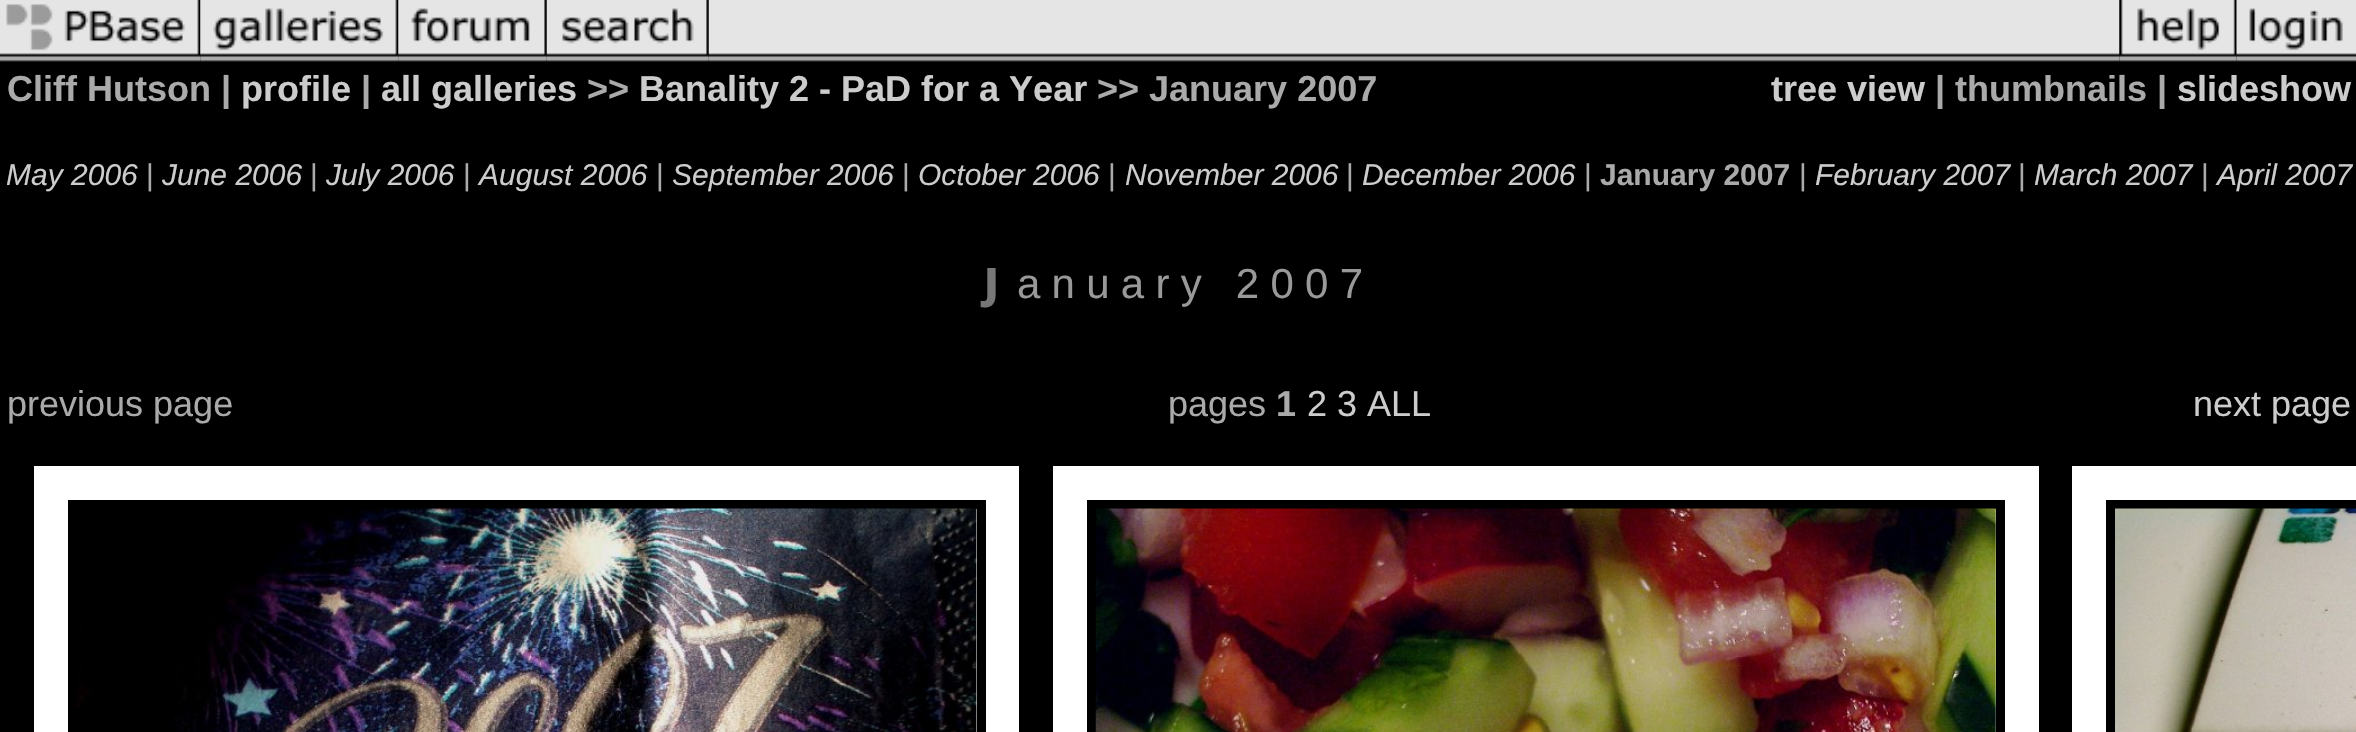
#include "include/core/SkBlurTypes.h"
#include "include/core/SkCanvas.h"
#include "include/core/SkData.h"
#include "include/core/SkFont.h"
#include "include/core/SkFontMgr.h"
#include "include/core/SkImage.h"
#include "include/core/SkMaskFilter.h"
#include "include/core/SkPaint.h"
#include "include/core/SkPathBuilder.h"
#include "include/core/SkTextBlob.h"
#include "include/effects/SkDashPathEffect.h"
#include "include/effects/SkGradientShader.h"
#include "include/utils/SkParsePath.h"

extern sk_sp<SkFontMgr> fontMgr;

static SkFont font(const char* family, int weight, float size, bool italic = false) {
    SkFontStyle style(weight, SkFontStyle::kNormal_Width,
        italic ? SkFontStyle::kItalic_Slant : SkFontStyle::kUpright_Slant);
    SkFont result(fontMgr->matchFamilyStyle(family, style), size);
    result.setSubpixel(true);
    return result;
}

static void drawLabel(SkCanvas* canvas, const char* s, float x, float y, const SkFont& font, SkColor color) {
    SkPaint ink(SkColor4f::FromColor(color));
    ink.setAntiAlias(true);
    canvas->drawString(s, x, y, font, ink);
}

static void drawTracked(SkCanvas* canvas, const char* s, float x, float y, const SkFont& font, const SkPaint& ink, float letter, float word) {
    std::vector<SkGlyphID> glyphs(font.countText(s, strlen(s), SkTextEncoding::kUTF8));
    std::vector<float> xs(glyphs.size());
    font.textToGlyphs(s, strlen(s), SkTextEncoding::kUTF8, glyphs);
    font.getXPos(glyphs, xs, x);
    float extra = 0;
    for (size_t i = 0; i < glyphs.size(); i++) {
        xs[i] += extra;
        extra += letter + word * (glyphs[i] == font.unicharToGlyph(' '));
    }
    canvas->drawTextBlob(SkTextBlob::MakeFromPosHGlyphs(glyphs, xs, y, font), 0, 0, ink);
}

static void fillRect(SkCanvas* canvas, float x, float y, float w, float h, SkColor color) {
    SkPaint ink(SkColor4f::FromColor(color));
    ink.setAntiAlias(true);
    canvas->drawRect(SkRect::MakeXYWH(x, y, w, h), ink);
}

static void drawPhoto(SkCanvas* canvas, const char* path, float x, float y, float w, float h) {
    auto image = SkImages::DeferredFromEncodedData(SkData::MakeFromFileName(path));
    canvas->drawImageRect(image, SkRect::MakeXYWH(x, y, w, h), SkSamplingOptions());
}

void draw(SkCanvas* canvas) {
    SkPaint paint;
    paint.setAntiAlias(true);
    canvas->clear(0xFF000000);
    drawPhoto(canvas, "assets/img1.png", 0, 0, 201, 62);
    drawPhoto(canvas, "assets/img2.png", 200, 0, 199, 62);
    drawPhoto(canvas, "assets/img3.png", 398, 0, 149, 62);
    drawPhoto(canvas, "assets/img4.png", 546, 0, 163, 62);
    drawPhoto(canvas, "assets/img5.png", 708, 0, 1412, 62);
    drawPhoto(canvas, "assets/img6.png", 2119, 0, 118, 62);
    drawPhoto(canvas, "assets/img7.png", 2236, 0, 120, 62);
    SkFont font1 = font("Liberation Sans", 700, 36);
    drawLabel(canvas, "Cliff Hutson |", 7, 101, font1, 0xFFAAAAAA);
    drawLabel(canvas, "profile", 241, 101, font1, 0xFFCCCCCC);
    drawLabel(canvas, "|", 361, 101, font1, 0xFFAAAAAA);
    drawLabel(canvas, "all galleries", 381, 101, font1, 0xFFCCCCCC);
    drawLabel(canvas, ">>", 587, 101, font1, 0xFFAAAAAA);
    drawLabel(canvas, "Banality 2 - PaD for a Year", 639, 101, font1, 0xFFCCCCCC);
    drawLabel(canvas, ">> January 2007", 1097, 101, font1, 0xFFAAAAAA);
    drawLabel(canvas, "tree view", 1771, 101, font1, 0xFFCCCCCC);
    drawLabel(canvas, "| thumbnails |", 1935, 101, font1, 0xFFAAAAAA);
    drawLabel(canvas, "slideshow", 2177, 101, font1, 0xFFCCCCCC);
    SkFont font2 = font("Liberation Sans", 400, 30, true);
    drawLabel(canvas, "May 2006", 6, 185, font2, 0xFFCCCCCC);
    SkFont font3 = font("Liberation Sans", 400, 30);
    drawLabel(canvas, "|", 146, 185, font3, 0xFFAAAAAA);
    drawLabel(canvas, "June 2006", 162, 185, font2, 0xFFCCCCCC);
    drawLabel(canvas, "|", 310, 185, font3, 0xFFAAAAAA);
    drawLabel(canvas, "July 2006", 326, 185, font2, 0xFFCCCCCC);
    drawLabel(canvas, "|", 463, 185, font3, 0xFFAAAAAA);
    drawLabel(canvas, "August 2006", 479, 185, font2, 0xFFCCCCCC);
    drawLabel(canvas, "|", 656, 185, font3, 0xFFAAAAAA);
    drawLabel(canvas, "September 2006", 672, 185, font2, 0xFFCCCCCC);
    drawLabel(canvas, "|", 902, 185, font3, 0xFFAAAAAA);
    drawLabel(canvas, "October 2006", 918, 185, font2, 0xFFCCCCCC);
    drawLabel(canvas, "|", 1108, 185, font3, 0xFFAAAAAA);
    drawLabel(canvas, "November 2006", 1125, 185, font2, 0xFFCCCCCC);
    drawLabel(canvas, "|", 1346, 185, font3, 0xFFAAAAAA);
    drawLabel(canvas, "December 2006", 1362, 185, font2, 0xFFCCCCCC);
    drawLabel(canvas, "|", 1584, 185, font3, 0xFFAAAAAA);
    SkFont font4 = font("Liberation Sans", 700, 30);
    drawLabel(canvas, "January 2007", 1600, 185, font4, 0xFFAAAAAA);
    drawLabel(canvas, "|", 1799, 185, font3, 0xFFAAAAAA);
    drawLabel(canvas, "February 2007", 1815, 185, font2, 0xFFCCCCCC);
    drawLabel(canvas, "|", 2018, 185, font3, 0xFFAAAAAA);
    drawLabel(canvas, "March 2007", 2034, 185, font2, 0xFFCCCCCC);
    drawLabel(canvas, "|", 2201, 185, font3, 0xFFAAAAAA);
    drawLabel(canvas, "April 2007", 2217, 185, font2, 0xFFCCCCCC);
    SkFont font5 = font("Noto Sans", 900, 42);
    paint.setColor(0xFF777777);
    drawTracked(canvas, "J", 984, 298, font5, paint, 11.25f, 0);
    SkFont font6 = font("Liberation Sans", 400, 42);
    paint.setColor(0xFF999999);
    drawTracked(canvas, "anuary 2007", 1017, 298, font6, paint, 11.25f, 0);
    SkFont font7 = font("Liberation Sans", 400, 36);
    drawLabel(canvas, "previous page", 7, 416, font7, 0xFFAAAAAA);
    drawLabel(canvas, "pages", 1168, 416, font7, 0xFFAAAAAA);
    drawLabel(canvas, "1", 1276, 416, font1, 0xFFAAAAAA);
    drawLabel(canvas, "2 3 ALL", 1307, 416, font7, 0xFFCCCCCC);
    drawLabel(canvas, "next page", 2193, 416, font7, 0xFFCCCCCC);
    fillRect(canvas, 34, 466, 985, 266, 0xFFFFFFFF);
    paint.setStroke(true);
    paint.setStrokeWidth(9);
    paint.setColor(0xFF000000);
    canvas->drawRect(SkRect::MakeXYWH(72.5f, 504.5f, 909, 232), paint);
    drawPhoto(canvas, "assets/img8.png", 76, 508, 901, 224);
    fillRect(canvas, 1053, 466, 986, 266, 0xFFFFFFFF);
    canvas->drawRect(SkRect::MakeXYWH(1091.5f, 504.5f, 909, 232), paint);
    drawPhoto(canvas, "assets/img9.png", 1095, 508, 901, 224);
    fillRect(canvas, 2072, 466, 284, 266, 0xFFFFFFFF);
    canvas->drawRect(SkRect::MakeXYWH(2110.5f, 504.5f, 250, 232), paint);
    drawPhoto(canvas, "assets/img10.png", 2115, 508, 241, 224);
}
